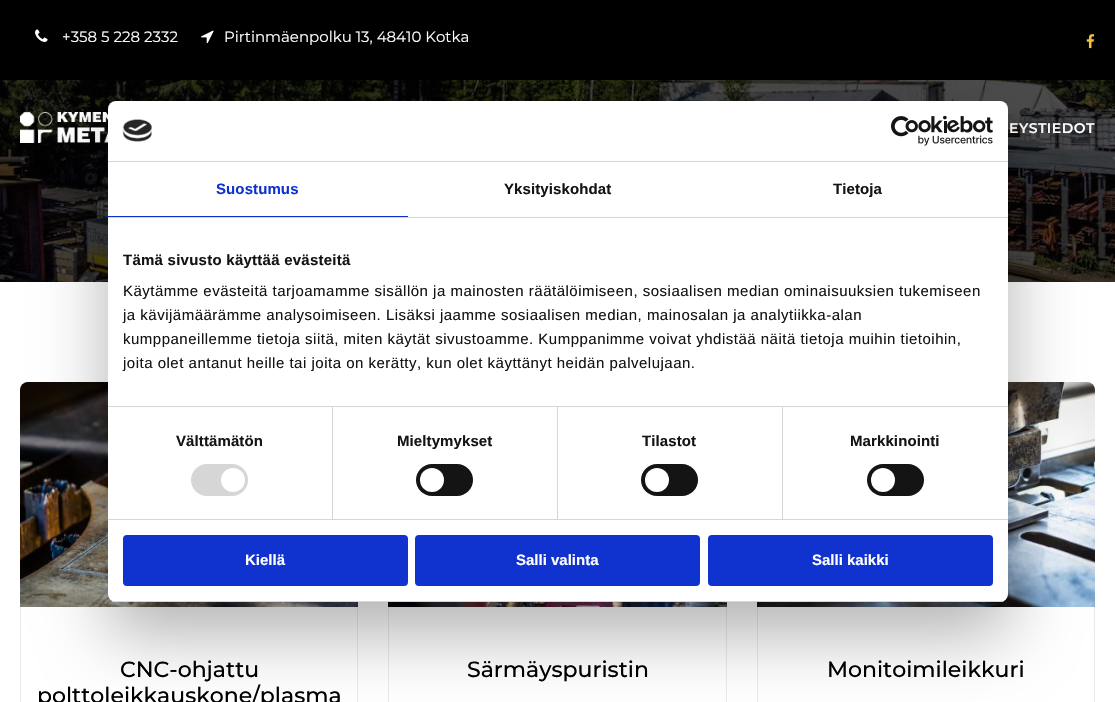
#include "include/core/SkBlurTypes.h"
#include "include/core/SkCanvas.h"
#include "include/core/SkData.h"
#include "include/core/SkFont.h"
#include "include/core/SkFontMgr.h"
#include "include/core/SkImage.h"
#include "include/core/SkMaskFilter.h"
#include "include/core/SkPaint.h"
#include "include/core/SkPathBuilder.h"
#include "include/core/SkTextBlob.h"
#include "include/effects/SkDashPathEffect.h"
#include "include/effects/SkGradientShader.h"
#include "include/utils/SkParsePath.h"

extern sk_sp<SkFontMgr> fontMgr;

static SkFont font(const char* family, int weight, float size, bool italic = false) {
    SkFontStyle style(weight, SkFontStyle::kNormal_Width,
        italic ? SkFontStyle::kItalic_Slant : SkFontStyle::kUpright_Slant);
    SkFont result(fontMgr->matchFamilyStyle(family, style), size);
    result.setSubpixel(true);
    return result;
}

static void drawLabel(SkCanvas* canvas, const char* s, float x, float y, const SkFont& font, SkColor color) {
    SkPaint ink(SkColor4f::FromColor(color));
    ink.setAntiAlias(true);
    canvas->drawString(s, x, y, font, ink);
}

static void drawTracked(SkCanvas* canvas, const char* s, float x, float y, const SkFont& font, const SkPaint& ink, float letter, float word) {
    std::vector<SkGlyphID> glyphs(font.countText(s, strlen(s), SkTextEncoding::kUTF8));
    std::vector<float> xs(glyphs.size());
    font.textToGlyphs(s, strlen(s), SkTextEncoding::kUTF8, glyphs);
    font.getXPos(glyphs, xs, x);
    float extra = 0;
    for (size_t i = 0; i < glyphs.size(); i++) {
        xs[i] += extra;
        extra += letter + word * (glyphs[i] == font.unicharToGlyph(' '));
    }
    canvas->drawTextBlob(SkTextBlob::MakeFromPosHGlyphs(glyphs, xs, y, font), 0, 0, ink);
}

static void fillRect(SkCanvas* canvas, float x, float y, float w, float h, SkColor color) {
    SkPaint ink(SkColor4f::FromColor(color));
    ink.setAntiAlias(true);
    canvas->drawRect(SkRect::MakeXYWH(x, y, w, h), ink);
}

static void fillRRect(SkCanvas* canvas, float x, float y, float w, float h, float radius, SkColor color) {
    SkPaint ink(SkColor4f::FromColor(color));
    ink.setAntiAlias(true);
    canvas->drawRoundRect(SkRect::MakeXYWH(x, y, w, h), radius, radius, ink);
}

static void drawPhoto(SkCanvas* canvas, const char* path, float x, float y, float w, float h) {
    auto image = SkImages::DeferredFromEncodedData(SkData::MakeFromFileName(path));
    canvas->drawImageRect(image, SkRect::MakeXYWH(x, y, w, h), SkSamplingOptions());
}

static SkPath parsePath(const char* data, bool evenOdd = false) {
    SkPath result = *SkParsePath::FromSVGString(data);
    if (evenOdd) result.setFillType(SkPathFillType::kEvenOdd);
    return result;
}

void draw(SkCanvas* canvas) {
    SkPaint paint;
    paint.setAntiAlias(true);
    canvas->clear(0xFFFFFFFF);
    fillRect(canvas, 0, 0, 1115, 80, 0xFF000000);
    drawPhoto(canvas, "assets/img1.png", 35, 29, 13, 13);
    SkFont font1 = font("Montserrat", 400, 15);
    drawLabel(canvas, "+358 5 228 2332", 62, 42, font1, 0xFFFFFFFF);
    drawPhoto(canvas, "assets/img2.png", 201, 30, 13, 14);
    drawLabel(canvas, "Pirtinmäenpolku 13, 48410 Kotka", 224, 42, font1, 0xFFFFFFFF);
    drawPhoto(canvas, "assets/img3.png", 1086, 34, 9, 15);
    drawPhoto(canvas, "assets/img5.png", 0, 80, 1115, 202);
    drawPhoto(canvas, "assets/img4.png", 20, 112, 88, 31);
    SkFont font2 = font("Montserrat", 600, 14);
    paint.setColor(0xFFFFFFFF);
    drawTracked(canvas, "EYSTIEDOT", 1009, 133, font2, paint, 0.5f, 0);
    paint.setStroke(true);
    paint.setStrokeWidth(1);
    paint.setColor(0xFFEAEAEA);
    canvas->drawRoundRect(SkRect::MakeXYWH(20.5f, 382.5f, 337, 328), 7.5f, 7.5f, paint);
    drawPhoto(canvas, "assets/img6.png", 20, 382, 338, 225);
    SkFont font3 = font("Montserrat", 500, 22);
    drawLabel(canvas, "CNC-ohjattu", 120, 677, font3, 0xFF000000);
    drawLabel(canvas, "polttoleikkauskone/plasma", 37, 703, font3, 0xFF000000);
    canvas->drawRect(SkRect::MakeXYWH(388.5f, 382.5f, 338, 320), paint);
    drawPhoto(canvas, "assets/img7.png", 388, 602, 339, 5);
    drawLabel(canvas, "Särmäyspuristin", 467, 677, font3, 0xFF000000);
    canvas->drawRoundRect(SkRect::MakeXYWH(757.5f, 382.5f, 337, 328), 7.5f, 7.5f, paint);
    drawPhoto(canvas, "assets/img8.png", 757, 382, 338, 225);
    drawLabel(canvas, "Monitoimileikkuri", 827, 677, font3, 0xFF000000);
    paint.setStroke(false);
    paint.setColor(0x4D000000);
    paint.setMaskFilter(SkMaskFilter::MakeBlur(kNormal_SkBlurStyle, 34));
    canvas->drawRoundRect(SkRect::MakeXYWH(108, 133, 900, 501), 8, 8, paint);
    paint.setMaskFilter(nullptr);
    fillRRect(canvas, 108, 101, 900, 501, 8, 0xFFFFFFFF);
    fillRect(canvas, 108, 161, 900, 1, 0xFFD6D6D6);
    drawPhoto(canvas, "assets/img9.png", 122, 119, 30, 23);
    drawPhoto(canvas, "assets/img10.png", 891, 116, 102, 30);
    fillRect(canvas, 108, 217, 900, 1, 0xFFD6D6D6);
    fillRect(canvas, 108, 216, 300, 1, 0xFF1032CF);
    SkFont font4 = font("Liberation Sans", 700, 15);
    paint.setColor(0xFF1032CF);
    drawTracked(canvas, "Suostumus", 216, 194, font4, paint, 0.1f, 0);
    paint.setColor(0xFF141414);
    drawTracked(canvas, "Yksityiskohdat", 504, 194, font4, paint, 0.1f, 0);
    drawTracked(canvas, "Tietoja", 833, 194, font4, paint, 0.1f, 0);
    fillRect(canvas, 108, 406, 900, 1, 0xFFD6D6D6);
    drawTracked(canvas, "Tämä sivusto käyttää evästeitä", 123, 265, font4, paint, 0.25f, 0);
    SkFont font5 = font("Liberation Sans", 400, 15);
    drawTracked(canvas, "Käytämme evästeitä tarjoamamme sisällön ja mainosten räätälöimiseen, sosiaalisen median ominaisuuksien tukemiseen", 123, 296, font5, paint, 0.5f, 0);
    drawTracked(canvas, "ja kävijämäärämme analysoimiseen. Lisäksi jaamme sosiaalisen median, mainosalan ja analytiikka-alan", 123, 320, font5, paint, 0.5f, 0);
    drawTracked(canvas, "kumppaneillemme tietoja siitä, miten käytät sivustoamme. Kumppanimme voivat yhdistää näitä tietoja muihin tietoihin,", 123, 344, font5, paint, 0.5f, 0);
    drawTracked(canvas, "joita olet antanut heille tai joita on kerätty, kun olet käyttänyt heidän palvelujaan.", 123, 368, font5, paint, 0.5f, 0);
    fillRect(canvas, 108, 519, 900, 1, 0xFFD6D6D6);
    fillRect(canvas, 332, 407, 1, 112, 0xFFD6D6D6);
    drawTracked(canvas, "Välttämätön", 176, 446, font4, paint, 0.1f, 0);
    fillRRect(canvas, 191, 464, 57, 32, 16, 0xFFD6D6D6);
    paint.setColor(0xFFFFFFFF);
    canvas->drawCircle(233, 480, 12, paint);
    fillRect(canvas, 557, 407, 1, 112, 0xFFD6D6D6);
    paint.setColor(0xFF141414);
    drawTracked(canvas, "Mieltymykset", 397, 446, font4, paint, 0.1f, 0);
    fillRRect(canvas, 416, 464, 57, 32, 16, 0xFF141414);
    paint.setColor(0xFFFFFFFF);
    canvas->drawCircle(432, 480, 12, paint);
    fillRect(canvas, 782, 407, 1, 112, 0xFFD6D6D6);
    paint.setColor(0xFF141414);
    drawTracked(canvas, "Tilastot", 642, 446, font4, paint, 0.1f, 0);
    fillRRect(canvas, 641, 464, 57, 32, 16, 0xFF141414);
    paint.setColor(0xFFFFFFFF);
    canvas->drawCircle(657, 480, 12, paint);
    paint.setColor(0xFF141414);
    drawTracked(canvas, "Markkinointi", 850, 446, font4, paint, 0.1f, 0);
    fillRRect(canvas, 867, 464, 57, 32, 16, 0xFF141414);
    paint.setColor(0xFFFFFFFF);
    canvas->drawCircle(883, 480, 12, paint);
    canvas->save();
    canvas->clipPath(parsePath("M116 101H1000C1004.5 101 1008 104.5 1008 109V594C1008 598.5 1004.5 602 1000 602H116C111.5 602 108 598.5 108 594V109C108 104.5 111.5 101 116 101Z"), true);
    fillRect(canvas, 108, 601, 900, 1, 0xFFD6D6D6);
    canvas->restore();
    paint.setColor(0xFF1032CF);
    canvas->drawRoundRect(SkRect::MakeXYWH(124, 536, 283, 49), 3, 3, paint);
    paint.setStroke(true);
    paint.setStrokeWidth(2);
    canvas->drawRoundRect(SkRect::MakeXYWH(124, 536, 283, 49), 3, 3, paint);
    drawLabel(canvas, "Kiellä", 245, 565, font4, 0xFFFFFFFF);
    paint.setStroke(false);
    canvas->drawRoundRect(SkRect::MakeXYWH(416, 536, 283, 49), 3, 3, paint);
    paint.setStroke(true);
    canvas->drawRoundRect(SkRect::MakeXYWH(416, 536, 283, 49), 3, 3, paint);
    drawLabel(canvas, "Salli valinta", 516, 565, font4, 0xFFFFFFFF);
    paint.setStroke(false);
    canvas->drawRoundRect(SkRect::MakeXYWH(709, 536, 283, 49), 3, 3, paint);
    paint.setStroke(true);
    canvas->drawRoundRect(SkRect::MakeXYWH(709, 536, 283, 49), 3, 3, paint);
    drawLabel(canvas, "Salli kaikki", 812, 565, font4, 0xFFFFFFFF);
}
